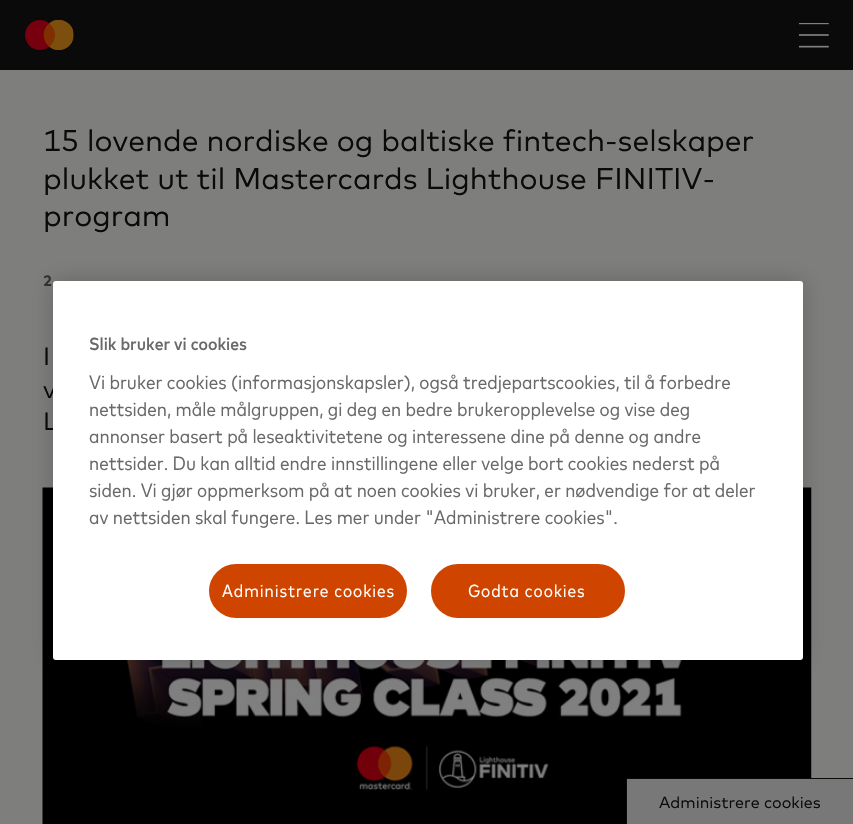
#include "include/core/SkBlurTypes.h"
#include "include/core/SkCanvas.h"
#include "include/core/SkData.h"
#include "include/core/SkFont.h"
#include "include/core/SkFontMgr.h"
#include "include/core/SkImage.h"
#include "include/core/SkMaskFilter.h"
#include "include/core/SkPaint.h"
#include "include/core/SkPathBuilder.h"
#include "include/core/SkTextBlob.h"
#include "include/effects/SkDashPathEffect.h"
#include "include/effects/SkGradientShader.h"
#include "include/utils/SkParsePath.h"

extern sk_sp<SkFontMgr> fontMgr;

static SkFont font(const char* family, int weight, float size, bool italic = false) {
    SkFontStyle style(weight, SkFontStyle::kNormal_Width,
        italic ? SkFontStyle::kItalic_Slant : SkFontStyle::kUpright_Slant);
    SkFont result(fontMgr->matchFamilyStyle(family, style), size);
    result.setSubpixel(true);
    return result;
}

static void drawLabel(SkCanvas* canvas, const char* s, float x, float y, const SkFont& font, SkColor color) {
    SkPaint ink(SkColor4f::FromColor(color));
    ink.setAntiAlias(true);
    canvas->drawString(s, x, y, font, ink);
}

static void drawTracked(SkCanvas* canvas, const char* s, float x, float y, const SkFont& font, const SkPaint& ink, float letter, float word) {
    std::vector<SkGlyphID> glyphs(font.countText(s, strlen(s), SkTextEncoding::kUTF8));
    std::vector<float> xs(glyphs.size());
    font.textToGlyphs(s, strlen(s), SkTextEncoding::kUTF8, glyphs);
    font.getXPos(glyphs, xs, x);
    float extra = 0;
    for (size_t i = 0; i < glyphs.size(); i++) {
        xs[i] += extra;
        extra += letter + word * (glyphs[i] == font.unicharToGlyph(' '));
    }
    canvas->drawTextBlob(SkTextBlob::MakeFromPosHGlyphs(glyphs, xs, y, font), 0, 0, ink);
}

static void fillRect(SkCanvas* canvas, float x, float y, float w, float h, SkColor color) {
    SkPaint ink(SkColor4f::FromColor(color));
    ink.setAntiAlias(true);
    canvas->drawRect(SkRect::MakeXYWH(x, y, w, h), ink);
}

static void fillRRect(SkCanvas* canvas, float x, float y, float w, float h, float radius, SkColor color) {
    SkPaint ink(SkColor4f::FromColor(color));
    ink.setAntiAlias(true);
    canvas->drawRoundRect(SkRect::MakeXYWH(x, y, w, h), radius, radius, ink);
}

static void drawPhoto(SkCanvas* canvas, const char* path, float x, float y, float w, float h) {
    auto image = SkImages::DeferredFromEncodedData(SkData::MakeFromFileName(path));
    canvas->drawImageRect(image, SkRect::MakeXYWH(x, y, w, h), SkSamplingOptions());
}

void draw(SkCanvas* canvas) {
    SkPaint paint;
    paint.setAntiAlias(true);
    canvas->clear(0xFF7E7E7D);
    fillRect(canvas, 0, 0, 853, 70, 0xFF0A0A0A);
    drawPhoto(canvas, "assets/img1.png", 25, 20, 49, 30);
    drawPhoto(canvas, "assets/img2.png", 799, 23, 30, 25);
    SkFont font1 = font("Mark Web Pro", 400, 30);
    drawLabel(canvas, "15 lovende nordiske og baltiske fintech-selskaper", 43, 151, font1, 0xFF0A0A0A);
    drawLabel(canvas, "plukket ut til Mastercards Lighthouse FINITIV-", 43, 189, font1, 0xFF0A0A0A);
    drawLabel(canvas, "program", 43, 226, font1, 0xFF0A0A0A);
    SkFont font2 = font("Mark Web Pro", 700, 15);
    paint.setColor(0xFF343331);
    drawTracked(canvas, "2", 43, 286, font2, paint, 2, 0);
    SkFont font3 = font("Mark Web Pro", 400, 25);
    drawLabel(canvas, "I", 43, 365, font3, 0xFF0A0A0A);
    drawLabel(canvas, "v", 43, 398, font3, 0xFF0A0A0A);
    drawLabel(canvas, "L", 43, 430, font3, 0xFF0A0A0A);
    drawPhoto(canvas, "assets/img3.png", 42, 487, 770, 337);
    paint.setColor(0xFF787878);
    canvas->drawRect(SkRect::MakeXYWH(626.5f, 778.5f, 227, 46), paint);
    paint.setStroke(true);
    paint.setStrokeWidth(1);
    paint.setColor(0xFF0A0A0A);
    canvas->drawRect(SkRect::MakeXYWH(626.5f, 778.5f, 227, 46), paint);
    SkFont font4 = font("Mark Web Pro", 400, 16);
    drawLabel(canvas, "Administrere cookies", 659, 808, font4, 0xFF0A0A0A);
    paint.setStroke(false);
    paint.setColor(0x33000000);
    paint.setMaskFilter(SkMaskFilter::MakeBlur(kNormal_SkBlurStyle, 11));
    canvas->drawRoundRect(SkRect::MakeXYWH(53, 281, 750, 379), 3, 3, paint);
    paint.setMaskFilter(nullptr);
    fillRRect(canvas, 53, 281, 750, 379, 3, 0xFFFFFFFF);
    SkFont font5 = font("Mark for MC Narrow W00", 500, 17.5f);
    drawLabel(canvas, "Slik bruker vi cookies", 89, 350, font5, 0xFF696969);
    SkFont font6 = font("Mark for MC Narrow W00", 400, 19.25f);
    drawLabel(canvas, "Vi bruker cookies (informasjonskapsler), også tredjepartscookies, til å forbedre", 89, 389, font6, 0xFF696969);
    drawLabel(canvas, "nettsiden, måle målgruppen, gi deg en bedre brukeropplevelse og vise deg", 89, 416, font6, 0xFF696969);
    drawLabel(canvas, "annonser basert på leseaktivitetene og interessene dine på denne og andre", 89, 443, font6, 0xFF696969);
    drawLabel(canvas, "nettsider. Du kan alltid endre innstillingene eller velge bort cookies nederst på", 89, 470, font6, 0xFF696969);
    drawLabel(canvas, "siden. Vi gjør oppmerksom på at noen cookies vi bruker, er nødvendige for at deler", 89, 497, font6, 0xFF696969);
    drawLabel(canvas, "av nettsiden skal fungere. Les mer under \"Administrere cookies\".", 89, 524, font6, 0xFF696969);
    paint.setColor(0xFFCF4500);
    canvas->drawRoundRect(SkRect::MakeXYWH(207.5f, 562.5f, 201, 57), 28.5f, 28.5f, paint);
    paint.setStroke(true);
    paint.setStrokeWidth(3);
    paint.setColor(0xFFFFFFFF);
    canvas->drawRoundRect(SkRect::MakeXYWH(207.5f, 562.5f, 201, 57), 28.5f, 28.5f, paint);
    SkFont font7 = font("Mark for MC Narrow W00", 400, 17.5f);
    paint.setStroke(false);
    drawTracked(canvas, "Administrere cookies", 222, 597, font7, paint, 0.9f, 0);
    paint.setColor(0xFFCF4500);
    canvas->drawRoundRect(SkRect::MakeXYWH(429.5f, 562.5f, 197, 57), 28.5f, 28.5f, paint);
    paint.setStroke(true);
    paint.setColor(0xFFFFFFFF);
    canvas->drawRoundRect(SkRect::MakeXYWH(429.5f, 562.5f, 197, 57), 28.5f, 28.5f, paint);
    paint.setStroke(false);
    drawTracked(canvas, "Godta cookies", 468, 597, font7, paint, 0.9f, 0);
}
